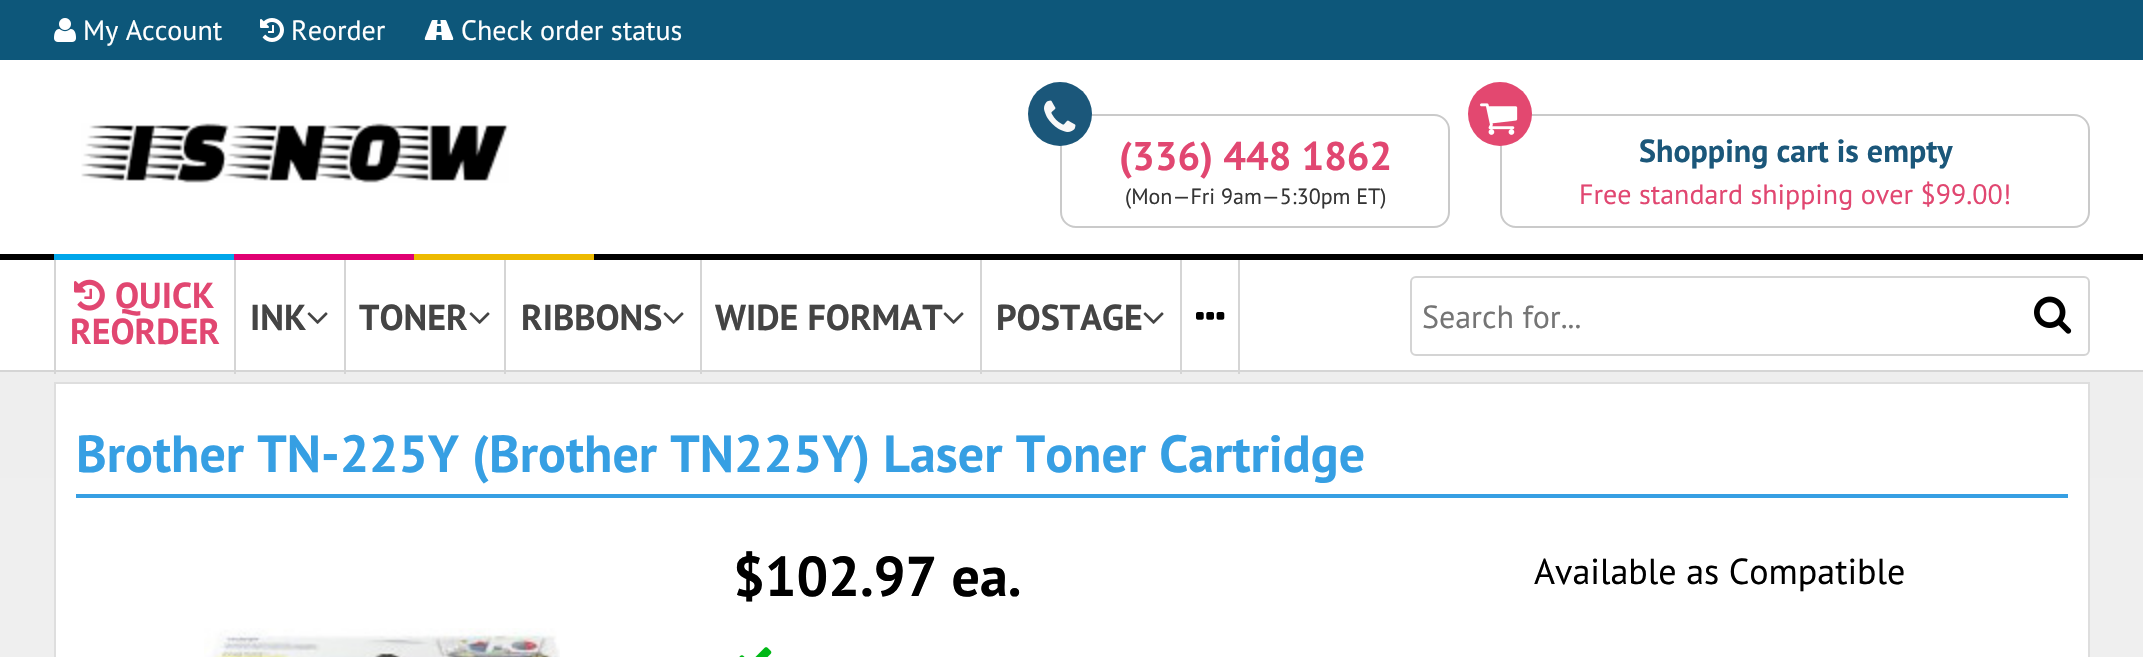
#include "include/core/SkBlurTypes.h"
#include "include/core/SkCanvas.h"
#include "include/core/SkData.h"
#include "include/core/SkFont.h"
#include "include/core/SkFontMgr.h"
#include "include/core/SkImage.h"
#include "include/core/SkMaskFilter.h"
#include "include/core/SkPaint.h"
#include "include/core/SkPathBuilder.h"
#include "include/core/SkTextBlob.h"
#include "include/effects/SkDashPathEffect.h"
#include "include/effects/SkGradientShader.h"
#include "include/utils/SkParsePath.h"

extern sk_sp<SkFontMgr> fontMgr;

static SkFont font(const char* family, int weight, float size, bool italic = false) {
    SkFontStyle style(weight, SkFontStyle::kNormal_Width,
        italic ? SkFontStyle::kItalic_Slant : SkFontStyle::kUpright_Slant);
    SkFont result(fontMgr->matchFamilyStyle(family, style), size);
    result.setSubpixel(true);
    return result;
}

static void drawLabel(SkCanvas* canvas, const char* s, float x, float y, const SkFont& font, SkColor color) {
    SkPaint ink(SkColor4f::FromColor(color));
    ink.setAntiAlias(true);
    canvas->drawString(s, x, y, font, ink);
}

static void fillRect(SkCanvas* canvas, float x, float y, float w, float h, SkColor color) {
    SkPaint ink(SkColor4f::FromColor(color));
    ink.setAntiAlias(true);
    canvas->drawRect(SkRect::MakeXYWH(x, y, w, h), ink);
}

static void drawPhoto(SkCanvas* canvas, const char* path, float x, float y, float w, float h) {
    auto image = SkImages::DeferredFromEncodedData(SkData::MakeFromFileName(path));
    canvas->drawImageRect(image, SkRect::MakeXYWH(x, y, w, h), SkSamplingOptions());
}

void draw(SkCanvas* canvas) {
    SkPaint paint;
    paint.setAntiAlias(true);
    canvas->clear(0xFFFFFFFF);
    fillRect(canvas, 0, 0, 2143, 60, 0xFF0D577A);
    drawPhoto(canvas, "assets/img1.png", 54, 18, 22, 24);
    SkFont font1 = font("PT Sans", 400, 28);
    drawLabel(canvas, "My Account", 83, 40, font1, 0xFFFFFFFF);
    drawPhoto(canvas, "assets/img2.png", 260, 18, 24, 24);
    drawLabel(canvas, "Reorder", 291, 40, font1, 0xFFFFFFFF);
    drawPhoto(canvas, "assets/img3.png", 424, 20, 30, 20);
    drawLabel(canvas, "Check order status", 461, 40, font1, 0xFFFFFFFF);
    drawPhoto(canvas, "assets/img4.png", 81, 123, 428, 60);
    paint.setStroke(true);
    paint.setStrokeWidth(2);
    paint.setColor(0xFFCACACA);
    canvas->drawRoundRect(SkRect::MakeXYWH(1061, 115, 388, 112), 15, 15, paint);
    paint.setStroke(false);
    paint.setColor(0xFF1B577A);
    canvas->drawCircle(1060, 114, 32, paint);
    drawPhoto(canvas, "assets/img5.png", 1044, 100, 32, 32);
    SkFont font2 = font("PT Sans", 700, 40);
    drawLabel(canvas, "(336) 448 1862", 1119, 170, font2, 0xFFE14771);
    SkFont font3 = font("PT Sans", 400, 22);
    drawLabel(canvas, "(Mon—Fri 9am—5:30pm ET)", 1125, 204, font3, 0xFF353535);
    paint.setStroke(true);
    paint.setColor(0xFFCACACA);
    canvas->drawRoundRect(SkRect::MakeXYWH(1501, 115, 588, 112), 15, 15, paint);
    paint.setStroke(false);
    paint.setColor(0xFFE34870);
    canvas->drawCircle(1500, 114, 32, paint);
    drawPhoto(canvas, "assets/img6.png", 1480, 103, 38, 32);
    SkFont font4 = font("PT Sans", 700, 32);
    drawLabel(canvas, "Shopping cart is empty", 1639, 162, font4, 0xFF1B577A);
    drawLabel(canvas, "Free standard shipping over $99.00!", 1579, 204, font1, 0xFFE14771);
    fillRect(canvas, 0, 254, 2143, 6, 0xFF000000);
    fillRect(canvas, 54, 254, 180, 6, 0xFF00A6EA);
    fillRect(canvas, 234, 254, 180, 6, 0xFFE00072);
    fillRect(canvas, 414, 254, 180, 6, 0xFFEDBA00);
    fillRect(canvas, 0, 370, 2143, 2, 0xFFD5D5D5);
    {
        const SkColor colors[] = {0xFFEEEEEE, 0xFFFFFFFF, 0xFFFFFFFF};
        const float stops[] = {0, 0.72f, 1};
        const SkPoint ends[] = {{1072, 372}, {1072, 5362}};
        paint.setShader(SkGradientShader::MakeLinear(ends, colors, stops, 3, SkTileMode::kClamp));
        paint.setAlpha(255);
    }
    canvas->drawRect(SkRect::MakeXYWH(0, 372, 2143, 285), paint);
    fillRect(canvas, 234, 260, 2, 114, 0xFFD5D5D5);
    fillRect(canvas, 54, 260, 2, 114, 0xFFD5D5D5);
    drawPhoto(canvas, "assets/img7.png", 74, 279, 31, 32);
    SkFont font5 = font("PT Sans", 700, 36);
    drawLabel(canvas, "QUICK", 115, 308, font5, 0xFFE14771);
    drawLabel(canvas, "REORDER", 70, 344, font5, 0xFFE14771);
    fillRect(canvas, 344, 260, 2, 114, 0xFFD5D5D5);
    drawLabel(canvas, "INK", 250, 330, font5, 0xFF444444);
    drawPhoto(canvas, "assets/img8.png", 307, 312, 21, 12);
    fillRect(canvas, 504, 260, 2, 114, 0xFFD5D5D5);
    drawLabel(canvas, "TONER", 359, 330, font5, 0xFF444444);
    drawPhoto(canvas, "assets/img8.png", 469, 312, 21, 12);
    fillRect(canvas, 700, 260, 2, 114, 0xFFD5D5D5);
    drawLabel(canvas, "RIBBONS", 521, 330, font5, 0xFF444444);
    drawPhoto(canvas, "assets/img8.png", 663, 312, 21, 12);
    fillRect(canvas, 980, 260, 2, 114, 0xFFD5D5D5);
    drawLabel(canvas, "WIDE FORMAT", 715, 330, font5, 0xFF444444);
    drawPhoto(canvas, "assets/img8.png", 943, 312, 21, 12);
    fillRect(canvas, 1180, 260, 2, 114, 0xFFD5D5D5);
    drawLabel(canvas, "POSTAGE", 996, 330, font5, 0xFF444444);
    drawPhoto(canvas, "assets/img8.png", 1143, 312, 21, 12);
    fillRect(canvas, 1238, 260, 2, 114, 0xFFD5D5D5);
    drawPhoto(canvas, "assets/img9.png", 1196, 312, 29, 8);
    paint.setStroke(true);
    paint.setShader(nullptr);
    paint.setColor(0xFFD4D4D4);
    canvas->drawRoundRect(SkRect::MakeXYWH(1411, 277, 678, 78), 5, 5, paint);
    SkFont font6 = font("PT Sans", 400, 32);
    drawLabel(canvas, "Search for...", 1422, 328, font6, 0xFF757575);
    drawPhoto(canvas, "assets/img10.png", 2034, 296, 38, 38);
    paint.setStroke(false);
    paint.setColor(0xFFFFFFFF);
    canvas->drawRect(SkRect::MakeXYWH(55, 383, 2034, 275), paint);
    paint.setStroke(true);
    paint.setColor(0xFFDEDEDE);
    canvas->drawRect(SkRect::MakeXYWH(55, 383, 2034, 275), paint);
    fillRect(canvas, 76, 494, 1992, 4, 0xFF369FE3);
    SkFont font7 = font("PT Sans", 700, 52);
    drawLabel(canvas, "Brother TN-225Y (Brother TN225Y) Laser Toner Cartridge", 76, 472, font7, 0xFF369FE3);
    SkFont font8 = font("PT Sans", 700, 56);
    drawLabel(canvas, "$102.97 ea.", 733, 596, font8, 0xFF000000);
    drawPhoto(canvas, "assets/img11.png", 739, 647, 33, 10);
    SkFont font9 = font("PT Sans", 400, 36);
    drawLabel(canvas, "Available as Compatible", 1534, 584, font9, 0xFF000000);
    drawPhoto(canvas, "assets/img12.png", 204, 628, 356, 29);
}
